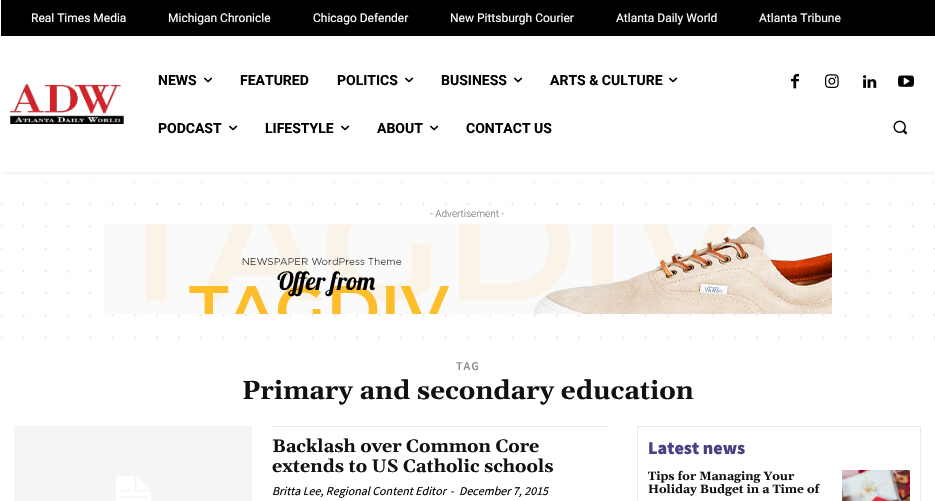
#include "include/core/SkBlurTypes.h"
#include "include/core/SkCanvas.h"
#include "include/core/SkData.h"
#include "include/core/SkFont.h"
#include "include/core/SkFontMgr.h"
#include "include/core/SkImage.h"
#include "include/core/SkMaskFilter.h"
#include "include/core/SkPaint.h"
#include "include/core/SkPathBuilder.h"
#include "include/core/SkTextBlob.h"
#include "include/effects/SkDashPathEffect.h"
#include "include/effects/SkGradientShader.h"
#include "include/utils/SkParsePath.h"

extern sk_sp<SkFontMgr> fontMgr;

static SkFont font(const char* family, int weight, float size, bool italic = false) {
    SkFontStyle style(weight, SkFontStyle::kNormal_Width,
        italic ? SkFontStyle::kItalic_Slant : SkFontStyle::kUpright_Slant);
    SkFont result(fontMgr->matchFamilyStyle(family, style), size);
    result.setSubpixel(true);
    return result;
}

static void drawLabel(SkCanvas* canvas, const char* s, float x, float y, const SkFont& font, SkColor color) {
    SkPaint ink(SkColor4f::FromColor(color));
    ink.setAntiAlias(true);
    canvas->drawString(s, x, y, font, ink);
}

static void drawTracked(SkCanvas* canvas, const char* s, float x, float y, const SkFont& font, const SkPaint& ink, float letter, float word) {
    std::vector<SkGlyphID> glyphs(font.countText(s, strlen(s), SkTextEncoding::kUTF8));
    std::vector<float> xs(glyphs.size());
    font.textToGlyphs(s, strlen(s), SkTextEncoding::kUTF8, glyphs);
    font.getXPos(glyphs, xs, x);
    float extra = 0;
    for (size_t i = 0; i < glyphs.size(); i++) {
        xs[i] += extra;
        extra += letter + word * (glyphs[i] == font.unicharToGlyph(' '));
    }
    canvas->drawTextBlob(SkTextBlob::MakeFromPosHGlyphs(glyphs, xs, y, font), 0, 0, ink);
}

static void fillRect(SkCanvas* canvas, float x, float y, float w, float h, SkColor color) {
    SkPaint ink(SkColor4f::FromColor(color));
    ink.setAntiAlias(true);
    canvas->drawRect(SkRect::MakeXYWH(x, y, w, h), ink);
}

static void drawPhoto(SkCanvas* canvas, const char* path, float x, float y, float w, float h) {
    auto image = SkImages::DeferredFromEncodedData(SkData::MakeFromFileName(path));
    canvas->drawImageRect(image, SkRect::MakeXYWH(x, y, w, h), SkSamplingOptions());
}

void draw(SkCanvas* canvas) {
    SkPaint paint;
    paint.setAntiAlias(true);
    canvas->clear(0xFFFFFFFF);
    fillRect(canvas, 1, 0, 934, 36, 0xFF000000);
    SkFont font1 = font("Roboto", 400, 12);
    drawLabel(canvas, "Real Times Media", 31, 22, font1, 0xFFFFFFFF);
    drawLabel(canvas, "Michigan Chronicle", 168, 22, font1, 0xFFFFFFFF);
    drawLabel(canvas, "Chicago Defender", 313, 22, font1, 0xFFFFFFFF);
    drawLabel(canvas, "New Pittsburgh Courier", 450, 22, font1, 0xFFFFFFFF);
    drawLabel(canvas, "Atlanta Daily World", 616, 22, font1, 0xFFFFFFFF);
    drawLabel(canvas, "Atlanta Tribune", 759, 22, font1, 0xFFFFFFFF);
    drawPhoto(canvas, "assets/img1.png", 10, 84, 114, 40);
    drawPhoto(canvas, "assets/img3.png", 791, 73, 8, 16);
    drawPhoto(canvas, "assets/img4.png", 825, 74, 14, 14);
    drawPhoto(canvas, "assets/img5.png", 863, 75, 14, 13);
    drawPhoto(canvas, "assets/img6.png", 898, 75, 16, 12);
    canvas->save();
    canvas->clipRect(SkRect::MakeXYWH(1, 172, 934, 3));
    paint.setColor(0x0F000000);
    paint.setMaskFilter(SkMaskFilter::MakeBlur(kNormal_SkBlurStyle, 2));
    canvas->drawRect(SkRect::MakeXYWH(1, 38, 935, 136), paint);
    paint.setMaskFilter(nullptr);
    canvas->restore();
    SkFont font2 = font("Roboto", 700, 14);
    drawLabel(canvas, "NEWS", 158, 85, font2, 0xFF000000);
    drawPhoto(canvas, "assets/img2.png", 204, 77, 9, 6);
    drawLabel(canvas, "FEATURED", 240, 85, font2, 0xFF000000);
    drawLabel(canvas, "POLITICS", 337, 85, font2, 0xFF000000);
    drawPhoto(canvas, "assets/img2.png", 405, 77, 9, 6);
    drawLabel(canvas, "BUSINESS", 441, 85, font2, 0xFF000000);
    drawPhoto(canvas, "assets/img2.png", 514, 77, 9, 6);
    drawLabel(canvas, "ARTS & CULTURE", 550, 85, font2, 0xFF000000);
    drawPhoto(canvas, "assets/img2.png", 669, 77, 9, 6);
    drawLabel(canvas, "PODCAST", 158, 133, font2, 0xFF000000);
    drawPhoto(canvas, "assets/img2.png", 229, 125, 9, 6);
    drawLabel(canvas, "LIFESTYLE", 265, 133, font2, 0xFF000000);
    drawPhoto(canvas, "assets/img2.png", 341, 125, 9, 6);
    drawLabel(canvas, "ABOUT", 377, 133, font2, 0xFF000000);
    drawPhoto(canvas, "assets/img2.png", 430, 125, 9, 6);
    drawLabel(canvas, "CONTACT US", 466, 133, font2, 0xFF000000);
    drawPhoto(canvas, "assets/img7.png", 893, 120, 15, 15);
    drawPhoto(canvas, "assets/img8.png", 0, 182, 935, 160);
    SkFont font3 = font("Roboto", 300, 10);
    drawLabel(canvas, "- Advertisement -", 430, 217, font3, 0xFF767676);
    drawPhoto(canvas, "assets/img9.png", 104, 224, 728, 90);
    SkFont font4 = font("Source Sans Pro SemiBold", 600, 12);
    paint.setColor(0xFF919191);
    drawTracked(canvas, "TAG", 456, 370, font4, paint, 1, 0);
    SkFont font5 = font("Gelasio", 700, 26);
    drawLabel(canvas, "Primary and secondary education", 242, 399, font5, 0xFF111111);
    drawPhoto(canvas, "assets/img10.png", 14, 426, 238, 75);
    fillRect(canvas, 272, 426, 337, 1, 0xFFEAEAEA);
    SkFont font6 = font("Gelasio", 700, 18);
    drawLabel(canvas, "Backlash over Common Core", 272, 452, font6, 0xFF111111);
    drawLabel(canvas, "extends to US Catholic schools", 272, 472, font6, 0xFF111111);
    SkFont font7 = font("Source Sans Pro", 400, 12, true);
    drawLabel(canvas, "Britta Lee, Regional Content Editor", 272, 495, font7, 0xFF000000);
    drawLabel(canvas, "-", 450, 495, font7, 0xFF000000);
    drawLabel(canvas, "December 7, 2015", 459, 495, font7, 0xFF000000);
    paint.setStroke(true);
    paint.setStrokeWidth(1);
    paint.setColor(0xFFEAEAEA);
    canvas->drawRect(SkRect::MakeXYWH(637.5f, 426.5f, 283, 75), paint);
    SkFont font8 = font("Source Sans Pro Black", 900, 18);
    drawLabel(canvas, "Latest news", 648, 454, font8, 0xFF4C4084);
    SkFont font9 = font("Gelasio", 700, 12);
    drawLabel(canvas, "Tips for Managing Your", 648, 480, font9, 0xFF111111);
    drawLabel(canvas, "Holiday Budget in a Time of", 648, 493, font9, 0xFF111111);
    drawPhoto(canvas, "assets/img11.png", 842, 470, 68, 31);
}
